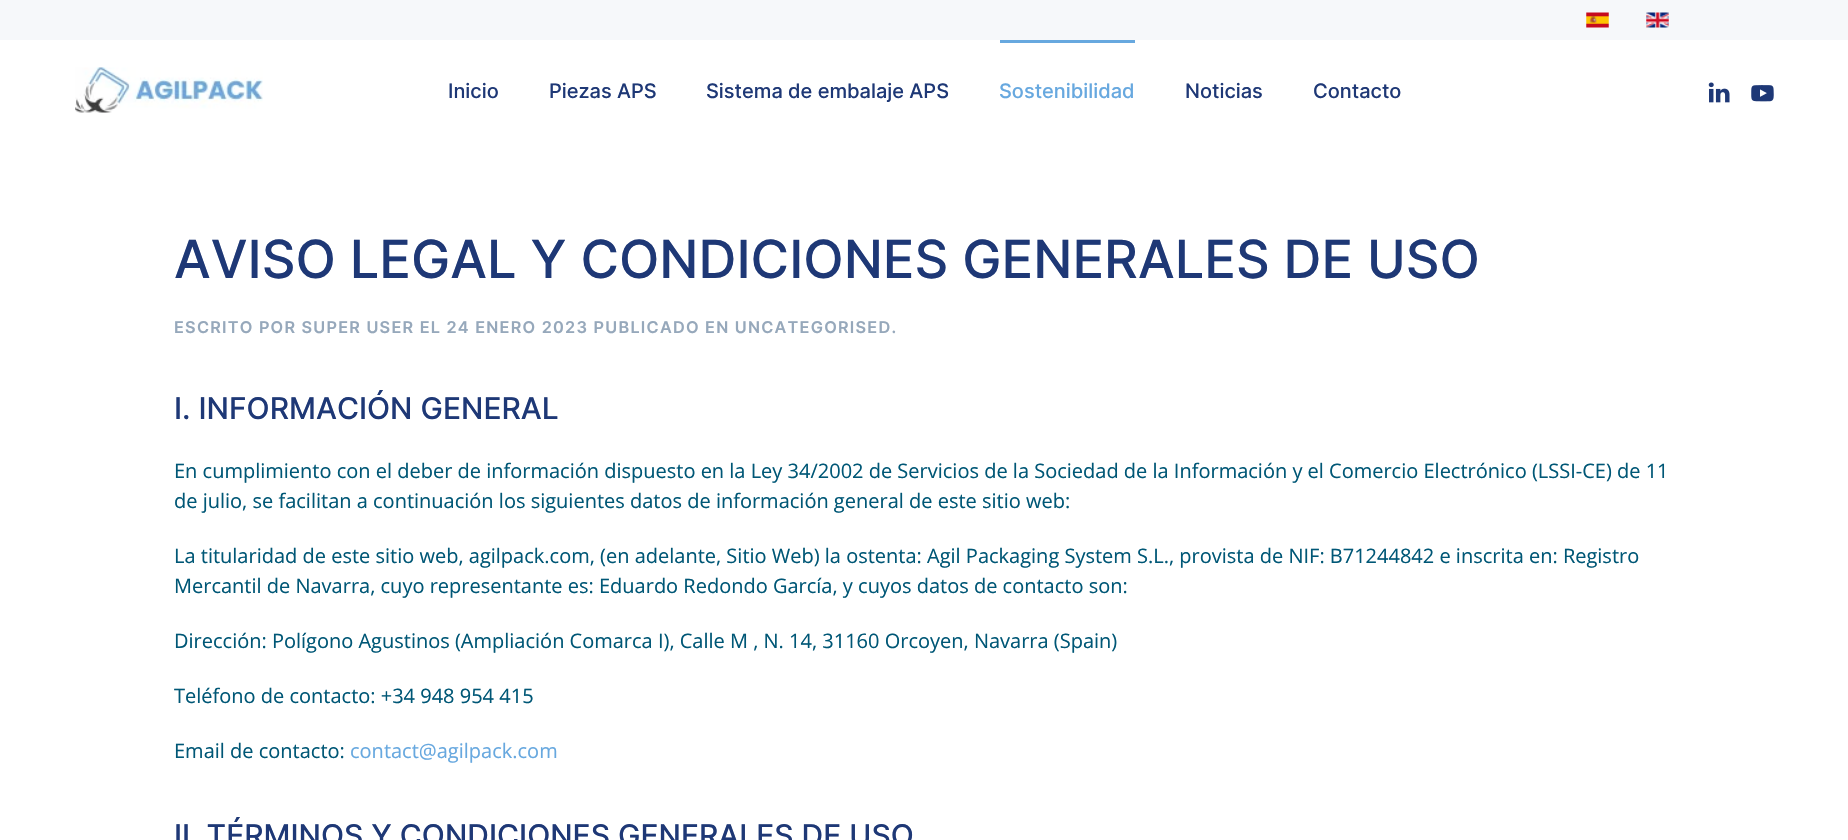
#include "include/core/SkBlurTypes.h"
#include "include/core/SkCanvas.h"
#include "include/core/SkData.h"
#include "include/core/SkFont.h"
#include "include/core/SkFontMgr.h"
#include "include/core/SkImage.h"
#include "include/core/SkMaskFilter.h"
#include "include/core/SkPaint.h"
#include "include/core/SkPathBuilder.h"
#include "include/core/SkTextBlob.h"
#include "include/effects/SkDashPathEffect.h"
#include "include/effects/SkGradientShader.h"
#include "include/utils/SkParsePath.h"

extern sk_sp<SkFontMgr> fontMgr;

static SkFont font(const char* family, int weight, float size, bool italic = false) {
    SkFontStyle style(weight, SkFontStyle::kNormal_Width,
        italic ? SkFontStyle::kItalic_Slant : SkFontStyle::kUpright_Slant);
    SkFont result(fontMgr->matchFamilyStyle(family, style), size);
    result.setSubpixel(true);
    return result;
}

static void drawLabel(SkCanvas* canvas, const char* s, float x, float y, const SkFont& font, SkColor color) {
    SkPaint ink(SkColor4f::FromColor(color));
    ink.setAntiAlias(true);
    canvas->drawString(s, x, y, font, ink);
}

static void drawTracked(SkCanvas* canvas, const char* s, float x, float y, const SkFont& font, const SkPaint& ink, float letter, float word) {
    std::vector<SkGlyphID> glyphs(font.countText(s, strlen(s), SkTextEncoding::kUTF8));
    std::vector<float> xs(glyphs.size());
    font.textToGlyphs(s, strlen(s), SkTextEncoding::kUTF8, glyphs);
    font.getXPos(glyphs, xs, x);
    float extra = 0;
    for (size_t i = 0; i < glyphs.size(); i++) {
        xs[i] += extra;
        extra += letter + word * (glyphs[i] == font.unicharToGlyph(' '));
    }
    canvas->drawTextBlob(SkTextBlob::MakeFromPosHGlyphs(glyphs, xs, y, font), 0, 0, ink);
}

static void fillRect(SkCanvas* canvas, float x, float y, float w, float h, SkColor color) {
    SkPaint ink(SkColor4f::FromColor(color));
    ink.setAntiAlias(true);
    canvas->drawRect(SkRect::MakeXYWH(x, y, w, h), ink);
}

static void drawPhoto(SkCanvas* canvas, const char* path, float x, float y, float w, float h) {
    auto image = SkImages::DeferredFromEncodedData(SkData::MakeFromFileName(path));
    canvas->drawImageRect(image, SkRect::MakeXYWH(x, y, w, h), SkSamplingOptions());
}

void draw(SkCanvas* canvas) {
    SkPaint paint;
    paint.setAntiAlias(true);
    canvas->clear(0xFFFFFFFF);
    fillRect(canvas, 0, 0, 1848, 40, 0xFFF6F8FA);
    drawPhoto(canvas, "assets/img1.png", 1586, 12, 23, 16);
    drawPhoto(canvas, "assets/img2.png", 1646, 12, 23, 16);
    drawPhoto(canvas, "assets/img3.png", 75, 67, 188, 46);
    SkFont font1 = font("Inter", 500, 20);
    drawLabel(canvas, "Inicio", 448, 98, font1, 0xFF1E3876);
    drawLabel(canvas, "Piezas APS", 549, 98, font1, 0xFF1E3876);
    drawLabel(canvas, "Sistema de embalaje APS", 706, 98, font1, 0xFF1E3876);
    fillRect(canvas, 1000, 40, 135, 3, 0xFF67A8DF);
    drawLabel(canvas, "Sostenibilidad", 999, 98, font1, 0xFF67A8DF);
    drawLabel(canvas, "Noticias", 1185, 98, font1, 0xFF1E3876);
    drawLabel(canvas, "Contacto", 1313, 98, font1, 0xFF1E3876);
    drawPhoto(canvas, "assets/img4.png", 1708, 82, 22, 21);
    drawPhoto(canvas, "assets/img5.png", 1751, 85, 23, 17);
    SkFont font2 = font("Inter", 500, 52.5f);
    drawLabel(canvas, "AVISO LEGAL Y CONDICIONES GENERALES DE USO", 174, 278, font2, 0xFF1E3876);
    SkFont font3 = font("Inter", 600, 16.25f);
    paint.setColor(0xFF96A8BB);
    drawTracked(canvas, "ESCRITO POR SUPER USER EL 24 ENERO 2023 PUBLICADO EN UNCATEGORISED.", 174, 333, font3, paint, 1.25f, 0);
    SkFont font4 = font("Inter", 500, 30);
    drawLabel(canvas, "I. INFORMACIÓN GENERAL", 174, 419, font4, 0xFF1E3876);
    SkFont font5 = font("Open Sans", 400, 20);
    drawLabel(canvas, "En cumplimiento con el deber de información dispuesto en la Ley 34/2002 de Servicios de la Sociedad de la Información y el Comercio Electrónico (LSSI-CE) de 11", 174, 478, font5, 0xFF005776);
    drawLabel(canvas, "de julio, se facilitan a continuación los siguientes datos de información general de este sitio web:", 174, 508, font5, 0xFF005776);
    drawLabel(canvas, "La titularidad de este sitio web, agilpack.com, (en adelante, Sitio Web) la ostenta: Agil Packaging System S.L., provista de NIF: B71244842 e inscrita en: Registro", 174, 563, font5, 0xFF005776);
    drawLabel(canvas, "Mercantil de Navarra, cuyo representante es: Eduardo Redondo García, y cuyos datos de contacto son:", 174, 593, font5, 0xFF005776);
    drawLabel(canvas, "Dirección: Polígono Agustinos (Ampliación Comarca I), Calle M , N. 14, 31160 Orcoyen, Navarra (Spain)", 174, 648, font5, 0xFF005776);
    drawLabel(canvas, "Teléfono de contacto: +34 948 954 415", 174, 703, font5, 0xFF005776);
    drawLabel(canvas, "Email de contacto:", 174, 758, font5, 0xFF005776);
    drawLabel(canvas, "contact@agilpack.com", 350, 758, font5, 0xFF67A8DF);
    drawLabel(canvas, "II. TÉRMINOS Y CONDICIONES GENERALES DE USO", 174, 846, font4, 0xFF1E3876);
}
